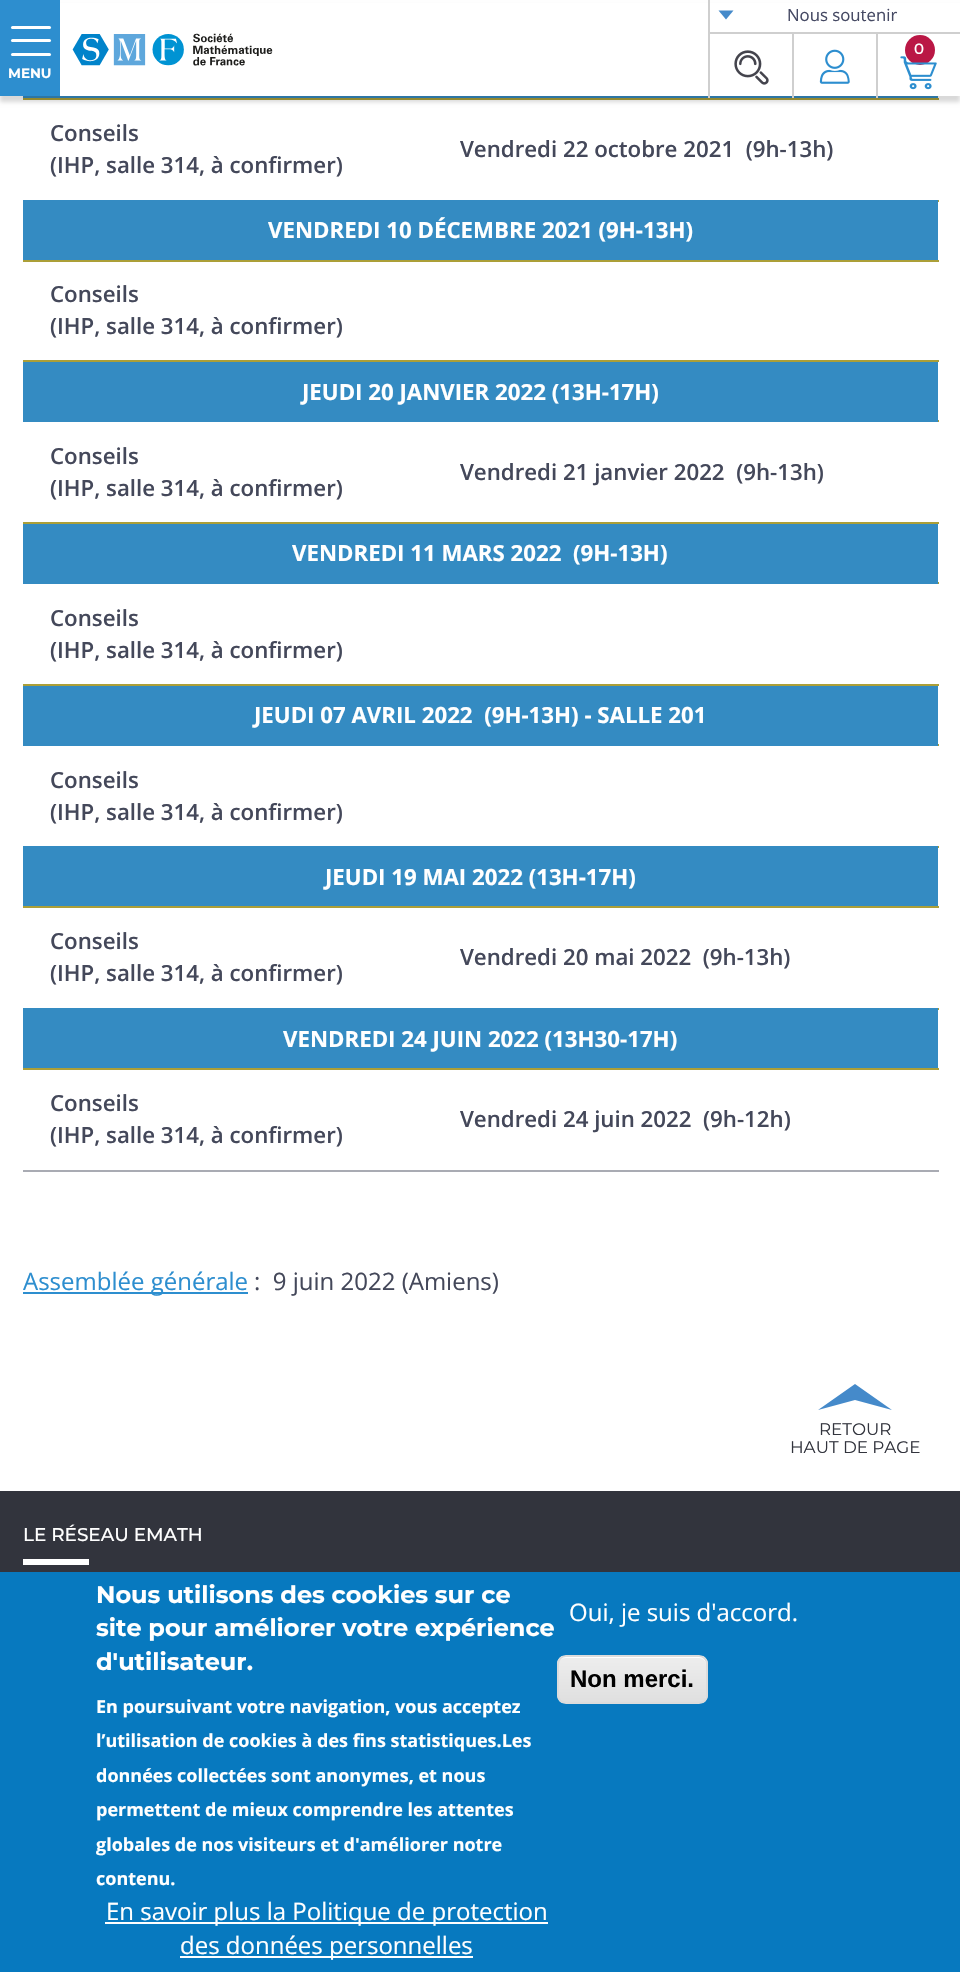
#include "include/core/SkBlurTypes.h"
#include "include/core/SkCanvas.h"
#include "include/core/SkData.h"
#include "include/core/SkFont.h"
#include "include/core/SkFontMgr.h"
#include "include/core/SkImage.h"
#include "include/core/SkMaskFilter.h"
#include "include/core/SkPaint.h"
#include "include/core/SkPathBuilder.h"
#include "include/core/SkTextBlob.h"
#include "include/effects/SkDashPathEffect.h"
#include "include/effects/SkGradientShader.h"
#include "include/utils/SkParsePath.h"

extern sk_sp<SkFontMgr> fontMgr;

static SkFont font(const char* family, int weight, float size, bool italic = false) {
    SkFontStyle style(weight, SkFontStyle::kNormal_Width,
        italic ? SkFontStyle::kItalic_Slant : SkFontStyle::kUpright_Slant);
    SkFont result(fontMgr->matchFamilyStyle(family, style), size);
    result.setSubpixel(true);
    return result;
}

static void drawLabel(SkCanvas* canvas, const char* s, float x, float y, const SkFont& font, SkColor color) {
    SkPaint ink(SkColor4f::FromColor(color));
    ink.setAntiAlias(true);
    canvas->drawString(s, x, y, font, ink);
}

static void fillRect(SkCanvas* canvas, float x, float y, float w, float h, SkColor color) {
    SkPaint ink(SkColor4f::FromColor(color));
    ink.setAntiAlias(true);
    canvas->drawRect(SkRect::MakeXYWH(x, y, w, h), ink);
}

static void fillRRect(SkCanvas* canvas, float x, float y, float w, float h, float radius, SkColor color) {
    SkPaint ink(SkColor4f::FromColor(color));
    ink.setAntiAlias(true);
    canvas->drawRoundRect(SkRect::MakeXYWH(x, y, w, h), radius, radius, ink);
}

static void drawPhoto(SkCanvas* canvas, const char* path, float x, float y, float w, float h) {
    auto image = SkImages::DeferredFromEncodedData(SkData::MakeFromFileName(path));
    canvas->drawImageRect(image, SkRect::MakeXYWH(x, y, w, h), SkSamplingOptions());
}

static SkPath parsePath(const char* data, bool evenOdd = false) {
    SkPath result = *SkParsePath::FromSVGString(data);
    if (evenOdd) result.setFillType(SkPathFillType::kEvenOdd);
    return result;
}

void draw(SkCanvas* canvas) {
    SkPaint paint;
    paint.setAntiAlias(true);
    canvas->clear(0xFFFFFFFF);
    fillRect(canvas, 23, 98, 916, 2, 0xFFAB9F38);
    fillRect(canvas, 23, 96, 915, 2, 0xFF348BC2);
    paint.setColor(0x26000000);
    paint.setMaskFilter(SkMaskFilter::MakeBlur(kNormal_SkBlurStyle, 2));
    canvas->drawRect(SkRect::MakeXYWH(0, 6, 960, 96), paint);
    paint.setMaskFilter(nullptr);
    fillRect(canvas, 60, 3, 900, 93, 0xFFFFFFFF);
    drawPhoto(canvas, "assets/img1.png", 72, 33, 201, 33);
    fillRect(canvas, 708, 33, 2, 65, 0xFFCFCFCF);
    fillRect(canvas, 792, 33, 2, 65, 0xFFCFCFCF);
    fillRect(canvas, 876, 33, 2, 65, 0xFFCFCFCF);
    fillRect(canvas, 708, 32, 252, 2, 0xFFCFCFCF);
    fillRect(canvas, 708, 0, 2, 33, 0xFFCFCFCF);
    paint.setColor(0xFF458ACA);
    canvas->drawPath(parsePath("M718.5 10.5H733.5L726 19.5Z"), paint);
    SkFont font1 = font("Open Sans", 400, 16.75f);
    drawLabel(canvas, "Nous soutenir", 787, 21, font1, 0xFF454963);
    drawPhoto(canvas, "assets/img2.png", 734, 50, 35, 35);
    drawPhoto(canvas, "assets/img3.png", 819, 49, 31, 35);
    paint.setColor(0xFFBA1745);
    canvas->drawCircle(920, 50, 15, paint);
    SkFont font2 = font("Montserrat", 500, 15);
    drawLabel(canvas, "0", 914, 54, font2, 0xFFFFFFFF);
    drawPhoto(canvas, "assets/img4.png", 900, 56, 37, 34);
    fillRect(canvas, 0, 0, 60, 96, 0xFF2D8ECF);
    fillRRect(canvas, 11, 26, 40, 3, 1.5f, 0xFFFFFFFF);
    fillRRect(canvas, 11, 39, 40, 3, 1.5f, 0xFFFFFFFF);
    fillRRect(canvas, 11, 53, 40, 3, 1.5f, 0xFFFFFFFF);
    SkFont font3 = font("Montserrat", 700, 13.5f);
    drawLabel(canvas, "MENU", 8, 78, font3, 0xFFFFFFFF);
    SkFont font4 = font("Open Sans", 600, 22.25f);
    drawLabel(canvas, "Conseils", 50, 141, font4, 0xFF44485A);
    drawLabel(canvas, "(IHP, salle 314, à confirmer)", 50, 173, font4, 0xFF44485A);
    fillRect(canvas, 938, 200, 1, 2, 0xFFAB9F38);
    drawLabel(canvas, "Vendredi 22 octobre 2021  (9h-13h)", 460, 157, font4, 0xFF44485A);
    fillRect(canvas, 23, 260, 916, 2, 0xFFAB9F38);
    fillRect(canvas, 23, 200, 915, 60, 0xFF348BC2);
    SkFont font5 = font("Open Sans", 700, 22.25f);
    drawLabel(canvas, "VENDREDI 10 DÉCEMBRE 2021 (9H-13H)", 268, 238, font5, 0xFFFFFFFF);
    drawLabel(canvas, "Conseils", 50, 302, font4, 0xFF44485A);
    drawLabel(canvas, "(IHP, salle 314, à confirmer)", 50, 334, font4, 0xFF44485A);
    fillRect(canvas, 23, 360, 916, 2, 0xFFAB9F38);
    fillRect(canvas, 938, 420, 1, 2, 0xFFAB9F38);
    fillRect(canvas, 23, 362, 915, 60, 0xFF348BC2);
    drawLabel(canvas, "JEUDI 20 JANVIER 2022 (13H-17H)", 302, 400, font5, 0xFFFFFFFF);
    drawLabel(canvas, "Conseils", 50, 464, font4, 0xFF44485A);
    drawLabel(canvas, "(IHP, salle 314, à confirmer)", 50, 496, font4, 0xFF44485A);
    fillRect(canvas, 23, 522, 916, 2, 0xFFAB9F38);
    drawLabel(canvas, "Vendredi 21 janvier 2022  (9h-13h)", 460, 480, font4, 0xFF44485A);
    fillRect(canvas, 938, 582, 1, 2, 0xFFAB9F38);
    fillRect(canvas, 23, 524, 915, 60, 0xFF348BC2);
    drawLabel(canvas, "VENDREDI 11 MARS 2022  (9H-13H)", 292, 561, font5, 0xFFFFFFFF);
    drawLabel(canvas, "Conseils", 50, 626, font4, 0xFF44485A);
    drawLabel(canvas, "(IHP, salle 314, à confirmer)", 50, 658, font4, 0xFF44485A);
    fillRect(canvas, 23, 684, 916, 2, 0xFFAB9F38);
    fillRect(canvas, 938, 744, 1, 2, 0xFFAB9F38);
    fillRect(canvas, 23, 686, 915, 60, 0xFF348BC2);
    drawLabel(canvas, "JEUDI 07 AVRIL 2022  (9H-13H) - SALLE 201", 254, 723, font5, 0xFFFFFFFF);
    drawLabel(canvas, "Conseils", 50, 788, font4, 0xFF44485A);
    drawLabel(canvas, "(IHP, salle 314, à confirmer)", 50, 820, font4, 0xFF44485A);
    fillRect(canvas, 938, 846, 1, 2, 0xFFAB9F38);
    fillRect(canvas, 23, 906, 916, 2, 0xFFAB9F38);
    fillRect(canvas, 23, 846, 915, 60, 0xFF348BC2);
    drawLabel(canvas, "JEUDI 19 MAI 2022 (13H-17H)", 325, 885, font5, 0xFFFFFFFF);
    drawLabel(canvas, "Conseils", 50, 949, font4, 0xFF44485A);
    drawLabel(canvas, "(IHP, salle 314, à confirmer)", 50, 981, font4, 0xFF44485A);
    fillRect(canvas, 938, 1008, 1, 2, 0xFFAB9F38);
    drawLabel(canvas, "Vendredi 20 mai 2022  (9h-13h)", 460, 965, font4, 0xFF44485A);
    fillRect(canvas, 23, 1068, 916, 2, 0xFFAB9F38);
    fillRect(canvas, 23, 1008, 915, 60, 0xFF348BC2);
    drawLabel(canvas, "VENDREDI 24 JUIN 2022 (13H30-17H)", 283, 1047, font5, 0xFFFFFFFF);
    drawLabel(canvas, "Conseils", 50, 1111, font4, 0xFF44485A);
    drawLabel(canvas, "(IHP, salle 314, à confirmer)", 50, 1143, font4, 0xFF44485A);
    fillRect(canvas, 23, 1170, 916, 2, 0xFFA9ABB3);
    drawLabel(canvas, "Vendredi 24 juin 2022  (9h-12h)", 460, 1127, font4, 0xFF44485A);
    fillRect(canvas, 23, 1292, 225, 2, 0xFF2D8ECF);
    SkFont font6 = font("Open Sans", 400, 24);
    drawLabel(canvas, "Assemblée générale", 23, 1290, font6, 0xFF2D8ECF);
    drawLabel(canvas, ":  9 juin 2022 (Amiens)", 254, 1290, font6, 0xFF44485A);
    paint.setColor(0xFF458ACA);
    canvas->drawPath(parsePath("M892 1410L855 1400L818 1410L855 1384Z"), paint);
    SkFont font7 = font("Montserrat", 400, 16.75f);
    drawLabel(canvas, "RETOUR", 819, 1435, font7, 0xFF32343D);
    drawLabel(canvas, "HAUT DE PAGE", 790, 1453, font7, 0xFF32343D);
    fillRect(canvas, 0, 1491, 960, 81, 0xFF32343D);
    SkFont font8 = font("Montserrat", 500, 18.4f);
    drawLabel(canvas, "LE RÉSEAU EMATH", 23, 1541, font8, 0xFFFFFFFF);
    fillRect(canvas, 23, 1559, 66, 6, 0xFFFFFFFF);
    fillRect(canvas, 0, 1572, 960, 400, 0xFF0779BF);
    SkFont font9 = font("Montserrat", 700, 24);
    drawLabel(canvas, "Nous utilisons des cookies sur ce", 96, 1603, font9, 0xFFFFFFFF);
    drawLabel(canvas, "site pour améliorer votre expérience", 96, 1636, font9, 0xFFFFFFFF);
    drawLabel(canvas, "d'utilisateur.", 96, 1670, font9, 0xFFFFFFFF);
    SkFont font10 = font("Open Sans", 700, 18);
    drawLabel(canvas, "En poursuivant votre navigation, vous acceptez", 96, 1713, font10, 0xFFFFFFFF);
    drawLabel(canvas, "l’utilisation de cookies à des fins statistiques.Les", 96, 1747, font10, 0xFFFFFFFF);
    drawLabel(canvas, "données collectées sont anonymes, et nous", 96, 1782, font10, 0xFFFFFFFF);
    drawLabel(canvas, "permettent de mieux comprendre les attentes", 96, 1816, font10, 0xFFFFFFFF);
    drawLabel(canvas, "globales de nos visiteurs et d'améliorer notre", 96, 1851, font10, 0xFFFFFFFF);
    drawLabel(canvas, "contenu.", 96, 1885, font10, 0xFFFFFFFF);
    fillRect(canvas, 105, 1922, 443, 2, 0xFFFFFFFF);
    drawLabel(canvas, "En savoir plus la Politique de protection", 106, 1920, font6, 0xFFFFFFFF);
    fillRect(canvas, 180, 1956, 293, 2, 0xFFFFFFFF);
    drawLabel(canvas, "des données personnelles", 180, 1954, font6, 0xFFFFFFFF);
    drawLabel(canvas, "Oui, je suis d'accord.", 569, 1621, font6, 0xFFFFFFFF);
    canvas->save();
    canvas->clipPath(parsePath("M566 1655H699C704 1655 708 1659 708 1664V1695C708 1700 704 1704 699 1704H566C561 1704 557 1700 557 1695V1664C557 1659 561 1655 566 1655Z"), true);
    {
        const SkColor colors[] = {0xFFEDEDED, 0xFFDFDFDF};
        const float stops[] = {0.05f, 1};
        const SkPoint ends[] = {{632, 1656}, {632, 1703}};
        paint.setShader(SkGradientShader::MakeLinear(ends, colors, stops, 2, SkTileMode::kClamp));
        paint.setAlpha(255);
    }
    canvas->drawRect(SkRect::MakeXYWH(557, 1656, 151, 47), paint);
    canvas->restore();
    paint.setShader(nullptr);
    paint.setColor(0xFFFFFFFF);
    canvas->drawPath(parsePath("M566 1658H699C703 1658 706 1661 706 1665V1696L705 1700C706 1699 707 1697 707 1695V1664C707 1660 703 1656 699 1656H566C562 1656 558 1660 558 1664V1665C558 1661 561 1658 566 1658Z"), paint);
    paint.setStroke(true);
    paint.setStrokeWidth(2);
    paint.setColor(0xFFDCDCDC);
    canvas->drawRoundRect(SkRect::MakeXYWH(558, 1656, 149, 47), 8, 8, paint);
    SkFont font11 = font("Liberation Sans", 700, 24);
    drawLabel(canvas, "Non merci.", 570, 1687, font11, 0xFF000000);
}
